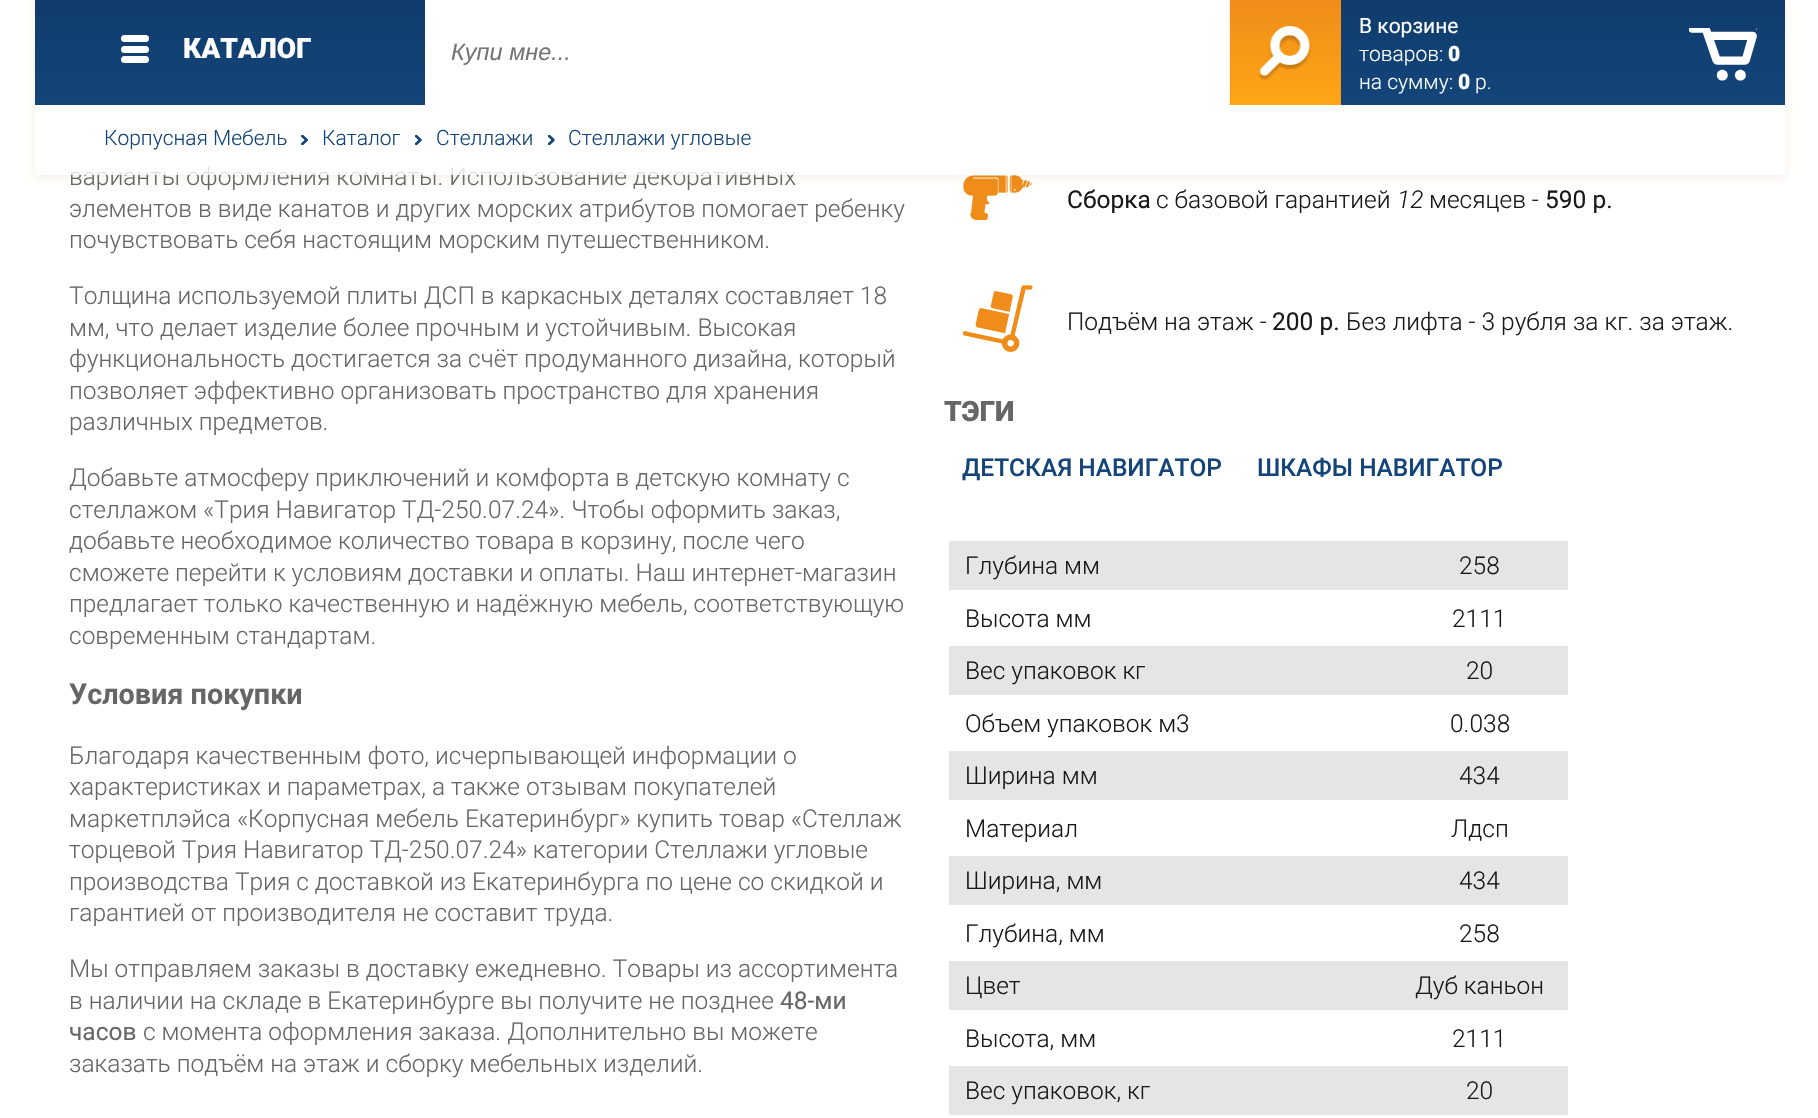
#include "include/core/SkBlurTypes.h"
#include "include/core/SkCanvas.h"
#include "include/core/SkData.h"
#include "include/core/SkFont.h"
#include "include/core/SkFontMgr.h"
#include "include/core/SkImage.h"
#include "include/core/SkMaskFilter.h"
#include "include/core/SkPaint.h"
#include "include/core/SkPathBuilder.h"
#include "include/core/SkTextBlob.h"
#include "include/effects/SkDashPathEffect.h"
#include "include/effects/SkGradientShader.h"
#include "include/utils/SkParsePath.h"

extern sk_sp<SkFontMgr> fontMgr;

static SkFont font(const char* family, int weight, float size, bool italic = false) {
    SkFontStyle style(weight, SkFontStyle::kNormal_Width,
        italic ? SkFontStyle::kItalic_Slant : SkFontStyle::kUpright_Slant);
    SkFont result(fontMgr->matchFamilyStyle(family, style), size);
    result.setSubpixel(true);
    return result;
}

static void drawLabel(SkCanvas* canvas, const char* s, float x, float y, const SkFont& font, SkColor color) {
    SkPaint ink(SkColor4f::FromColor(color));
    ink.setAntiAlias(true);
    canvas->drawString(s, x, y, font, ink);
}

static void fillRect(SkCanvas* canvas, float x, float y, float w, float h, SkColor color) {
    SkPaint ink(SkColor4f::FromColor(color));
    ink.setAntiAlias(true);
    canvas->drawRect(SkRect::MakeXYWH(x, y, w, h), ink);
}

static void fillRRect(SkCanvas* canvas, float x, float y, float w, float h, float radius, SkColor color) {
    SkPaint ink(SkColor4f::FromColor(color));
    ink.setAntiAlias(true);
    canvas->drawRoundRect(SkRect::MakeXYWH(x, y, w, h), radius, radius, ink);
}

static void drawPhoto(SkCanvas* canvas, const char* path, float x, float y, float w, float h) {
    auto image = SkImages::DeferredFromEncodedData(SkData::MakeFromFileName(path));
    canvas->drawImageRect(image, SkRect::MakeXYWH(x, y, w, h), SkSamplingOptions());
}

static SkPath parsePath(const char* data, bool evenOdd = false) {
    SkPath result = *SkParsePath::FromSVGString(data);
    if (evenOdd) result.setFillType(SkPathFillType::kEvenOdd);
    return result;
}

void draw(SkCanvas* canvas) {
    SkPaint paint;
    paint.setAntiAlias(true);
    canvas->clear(0xFFFFFFFF);
    drawPhoto(canvas, "assets/img6.png", 963, 175, 69, 45);
    canvas->save();
    canvas->clipPath(parsePath("M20 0H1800V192H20ZM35 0H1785V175H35Z", true), true);
    paint.setColor(0x1A964E00);
    paint.setMaskFilter(SkMaskFilter::MakeBlur(kNormal_SkBlurStyle, 4.5f));
    canvas->drawRect(SkRect::MakeXYWH(35, 2, 1750, 175), paint);
    paint.setMaskFilter(nullptr);
    canvas->restore();
    SkFont font1 = font("Roboto", 300, 24.5f);
    drawLabel(canvas, "варианты оформления комнаты. Использование декоративных", 69, 185, font1, 0xFF666666);
    fillRect(canvas, 71, 166, 725, 9, 0xCCFFFFFF);
    {
        const SkColor colors[] = {0xFF0F3C6C, 0xFF14457A};
        const float stops[] = {0, 1};
        const SkPoint ends[] = {{910, 0}, {910, 105}};
        paint.setShader(SkGradientShader::MakeLinear(ends, colors, stops, 2, SkTileMode::kClamp));
        paint.setAlpha(255);
    }
    canvas->drawRect(SkRect::MakeXYWH(35, 0, 1750, 105), paint);
    fillRRect(canvas, 121, 35, 28, 7, 3.5f, 0xFFFFFFFF);
    fillRRect(canvas, 121, 46, 28, 7, 3.5f, 0xFFFFFFFF);
    fillRRect(canvas, 121, 56, 28, 7, 3.5f, 0xFFFFFFFF);
    SkFont font2 = font("Roboto", 900, 28);
    drawLabel(canvas, "КАТАЛОГ", 183, 58, font2, 0xFFFFFFFF);
    fillRect(canvas, 425, 0, 805, 105, 0xFFFFFFFF);
    canvas->save();
    canvas->clipRect(SkRect::MakeXYWH(452, 39, 777, 26));
    SkFont font3 = font("Liberation Sans", 400, 23.5f, true);
    drawLabel(canvas, "Купи мне...", 451, 60, font3, 0xFF757575);
    canvas->restore();
    fillRect(canvas, 1230, 0, 111, 105, 0xFFF08D1A);
    drawPhoto(canvas, "assets/img1.png", 1229, 0, 112, 105);
    SkFont font4 = font("Roboto", 400, 21);
    drawLabel(canvas, "В корзине", 1359, 33, font4, 0xFFFFFFFF);
    drawPhoto(canvas, "assets/img2.png", 1689, 28, 68, 53);
    SkFont font5 = font("Roboto", 300, 21);
    drawLabel(canvas, "товаров:", 1359, 61, font5, 0xFFFFFFFF);
    SkFont font6 = font("Roboto", 900, 21);
    drawLabel(canvas, "0", 1448, 61, font6, 0xFFFFFFFF);
    drawLabel(canvas, "на сумму:", 1359, 89, font5, 0xFFFFFFFF);
    drawLabel(canvas, "0", 1458, 89, font6, 0xFFFFFFFF);
    drawLabel(canvas, "р.", 1475, 89, font5, 0xFFFFFFFF);
    drawLabel(canvas, "Корпусная Мебель", 104, 145, font5, 0xFF14457A);
    drawPhoto(canvas, "assets/img3.png", 301, 135, 7, 10);
    drawLabel(canvas, "Каталог", 322, 145, font5, 0xFF14457A);
    drawPhoto(canvas, "assets/img4.png", 415, 135, 7, 10);
    drawLabel(canvas, "Стеллажи", 436, 145, font5, 0xFF14457A);
    drawPhoto(canvas, "assets/img5.png", 548, 135, 7, 10);
    drawLabel(canvas, "Стеллажи угловые", 568, 145, font5, 0xFF14457A);
    drawLabel(canvas, "элементов в виде канатов и других морских атрибутов помогает ребенку", 69, 217, font1, 0xFF666666);
    drawLabel(canvas, "почувствовать себя настоящим морским путешественником.", 69, 248, font1, 0xFF666666);
    drawLabel(canvas, "Толщина используемой плиты ДСП в каркасных деталях составляет 18", 69, 304, font1, 0xFF666666);
    drawLabel(canvas, "мм, что делает изделие более прочным и устойчивым. Высокая", 69, 336, font1, 0xFF666666);
    drawLabel(canvas, "функциональность достигается за счёт продуманного дизайна, который", 69, 367, font1, 0xFF666666);
    drawLabel(canvas, "позволяет эффективно организовать пространство для хранения", 69, 399, font1, 0xFF666666);
    drawLabel(canvas, "различных предметов.", 69, 430, font1, 0xFF666666);
    drawLabel(canvas, "Добавьте атмосферу приключений и комфорта в детскую комнату с", 69, 486, font1, 0xFF666666);
    drawLabel(canvas, "стеллажом «Трия Навигатор ТД-250.07.24». Чтобы оформить заказ,", 69, 518, font1, 0xFF666666);
    drawLabel(canvas, "добавьте необходимое количество товара в корзину, после чего", 69, 549, font1, 0xFF666666);
    drawLabel(canvas, "сможете перейти к условиям доставки и оплаты. Наш интернет-магазин", 69, 581, font1, 0xFF666666);
    drawLabel(canvas, "предлагает только качественную и надёжную мебель, соответствующую", 69, 612, font1, 0xFF666666);
    drawLabel(canvas, "современным стандартам.", 69, 644, font1, 0xFF666666);
    SkFont font7 = font("Roboto", 700, 28.75f);
    drawLabel(canvas, "Условия покупки", 69, 704, font7, 0xFF666666);
    drawLabel(canvas, "Благодаря качественным фото, исчерпывающей информации о", 69, 764, font1, 0xFF666666);
    drawLabel(canvas, "характеристиках и параметрах, а также отзывам покупателей", 69, 795, font1, 0xFF666666);
    drawLabel(canvas, "маркетплэйса «Корпусная мебель Екатеринбург» купить товар «Стеллаж", 69, 827, font1, 0xFF666666);
    drawLabel(canvas, "торцевой Трия Навигатор ТД-250.07.24» категории Стеллажи угловые", 69, 858, font1, 0xFF666666);
    drawLabel(canvas, "производства Трия с доставкой из Екатеринбурга по цене со скидкой и", 69, 890, font1, 0xFF666666);
    drawLabel(canvas, "гарантией от производителя не составит труда.", 69, 921, font1, 0xFF666666);
    drawLabel(canvas, "Мы отправляем заказы в доставку ежедневно. Товары из ассортимента", 69, 977, font1, 0xFF666666);
    drawLabel(canvas, "в наличии на складе в Екатеринбурге вы получите не позднее", 69, 1009, font1, 0xFF666666);
    SkFont font8 = font("Roboto", 400, 24.5f);
    drawLabel(canvas, "48-ми", 780, 1009, font8, 0xFF666666);
    drawLabel(canvas, "часов", 69, 1040, font8, 0xFF666666);
    drawLabel(canvas, "с момента оформления заказа. Дополнительно вы можете", 143, 1040, font1, 0xFF666666);
    drawLabel(canvas, "заказать подъём на этаж и сборку мебельных изделий.", 69, 1072, font1, 0xFF666666);
    fillRect(canvas, 949, 541, 619, 49, 0xFFE5E5E5);
    drawLabel(canvas, "Глубина мм", 965, 574, font1, 0xFF191919);
    drawLabel(canvas, "258", 1459, 574, font1, 0xFF191919);
    drawLabel(canvas, "Высота мм", 965, 627, font1, 0xFF191919);
    drawLabel(canvas, "2111", 1452, 627, font1, 0xFF191919);
    fillRect(canvas, 949, 646, 619, 49, 0xFFE5E5E5);
    drawLabel(canvas, "Вес упаковок кг", 965, 679, font1, 0xFF191919);
    drawLabel(canvas, "20", 1466, 679, font1, 0xFF191919);
    drawLabel(canvas, "Объем упаковок м3", 965, 732, font1, 0xFF191919);
    drawLabel(canvas, "0.038", 1450, 732, font1, 0xFF191919);
    fillRect(canvas, 949, 751, 619, 49, 0xFFE5E5E5);
    drawLabel(canvas, "Ширина мм", 965, 784, font1, 0xFF191919);
    drawLabel(canvas, "434", 1459, 784, font1, 0xFF191919);
    drawLabel(canvas, "Материал", 965, 837, font1, 0xFF191919);
    drawLabel(canvas, "Лдсп", 1451, 837, font1, 0xFF191919);
    fillRect(canvas, 949, 856, 619, 49, 0xFFE5E5E5);
    drawLabel(canvas, "Ширина, мм", 965, 889, font1, 0xFF191919);
    drawLabel(canvas, "434", 1459, 889, font1, 0xFF191919);
    drawLabel(canvas, "Глубина, мм", 965, 942, font1, 0xFF191919);
    drawLabel(canvas, "258", 1459, 942, font1, 0xFF191919);
    fillRect(canvas, 949, 961, 619, 49, 0xFFE5E5E5);
    drawLabel(canvas, "Цвет", 965, 994, font1, 0xFF191919);
    drawLabel(canvas, "Дуб каньон", 1415, 994, font1, 0xFF191919);
    drawLabel(canvas, "Высота, мм", 965, 1047, font1, 0xFF191919);
    drawLabel(canvas, "2111", 1452, 1047, font1, 0xFF191919);
    fillRect(canvas, 949, 1066, 619, 49, 0xFFE5E5E5);
    drawLabel(canvas, "Вес упаковок, кг", 965, 1099, font1, 0xFF191919);
    drawLabel(canvas, "20", 1466, 1099, font1, 0xFF191919);
    drawLabel(canvas, "Сборка", 1067, 208, font8, 0xFF191919);
    drawLabel(canvas, "с базовой гарантией", 1156, 208, font1, 0xFF191919);
    SkFont font9 = font("Roboto", 300, 24.5f, true);
    drawLabel(canvas, "12", 1397, 208, font9, 0xFF191919);
    drawLabel(canvas, "месяцев -", 1429, 208, font1, 0xFF191919);
    drawLabel(canvas, "590 р.", 1545, 208, font8, 0xFF191919);
    drawPhoto(canvas, "assets/img7.png", 963, 285, 70, 67);
    drawLabel(canvas, "Подъём на этаж -", 1067, 330, font1, 0xFF191919);
    drawLabel(canvas, "200 р.", 1272, 330, font8, 0xFF191919);
    drawLabel(canvas, "Без лифта - 3 рубля за кг. за этаж.", 1346, 330, font1, 0xFF191919);
    drawLabel(canvas, "ТЭГИ", 944, 421, font2, 0xFF666666);
    SkFont font10 = font("Roboto", 500, 24.5f);
    drawLabel(canvas, "ДЕТСКАЯ НАВИГАТОР", 962, 476, font10, 0xFF14457A);
    drawLabel(canvas, "ШКАФЫ НАВИГАТОР", 1257, 476, font10, 0xFF14457A);
}
